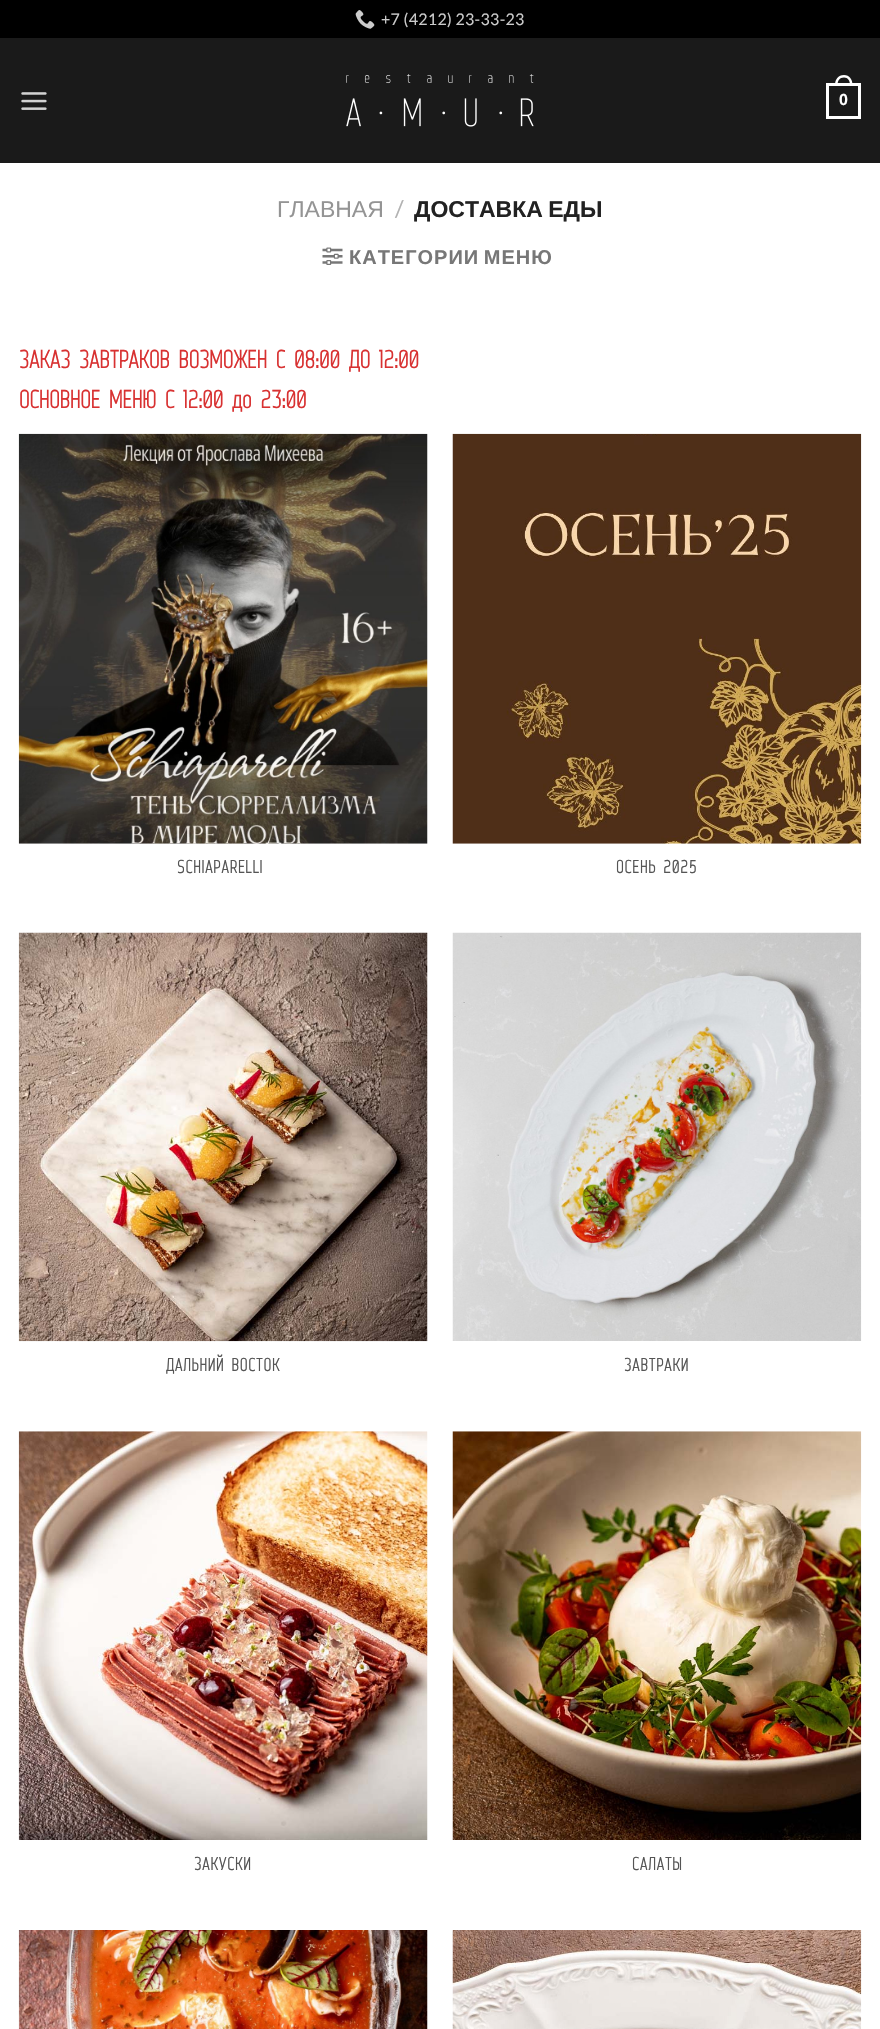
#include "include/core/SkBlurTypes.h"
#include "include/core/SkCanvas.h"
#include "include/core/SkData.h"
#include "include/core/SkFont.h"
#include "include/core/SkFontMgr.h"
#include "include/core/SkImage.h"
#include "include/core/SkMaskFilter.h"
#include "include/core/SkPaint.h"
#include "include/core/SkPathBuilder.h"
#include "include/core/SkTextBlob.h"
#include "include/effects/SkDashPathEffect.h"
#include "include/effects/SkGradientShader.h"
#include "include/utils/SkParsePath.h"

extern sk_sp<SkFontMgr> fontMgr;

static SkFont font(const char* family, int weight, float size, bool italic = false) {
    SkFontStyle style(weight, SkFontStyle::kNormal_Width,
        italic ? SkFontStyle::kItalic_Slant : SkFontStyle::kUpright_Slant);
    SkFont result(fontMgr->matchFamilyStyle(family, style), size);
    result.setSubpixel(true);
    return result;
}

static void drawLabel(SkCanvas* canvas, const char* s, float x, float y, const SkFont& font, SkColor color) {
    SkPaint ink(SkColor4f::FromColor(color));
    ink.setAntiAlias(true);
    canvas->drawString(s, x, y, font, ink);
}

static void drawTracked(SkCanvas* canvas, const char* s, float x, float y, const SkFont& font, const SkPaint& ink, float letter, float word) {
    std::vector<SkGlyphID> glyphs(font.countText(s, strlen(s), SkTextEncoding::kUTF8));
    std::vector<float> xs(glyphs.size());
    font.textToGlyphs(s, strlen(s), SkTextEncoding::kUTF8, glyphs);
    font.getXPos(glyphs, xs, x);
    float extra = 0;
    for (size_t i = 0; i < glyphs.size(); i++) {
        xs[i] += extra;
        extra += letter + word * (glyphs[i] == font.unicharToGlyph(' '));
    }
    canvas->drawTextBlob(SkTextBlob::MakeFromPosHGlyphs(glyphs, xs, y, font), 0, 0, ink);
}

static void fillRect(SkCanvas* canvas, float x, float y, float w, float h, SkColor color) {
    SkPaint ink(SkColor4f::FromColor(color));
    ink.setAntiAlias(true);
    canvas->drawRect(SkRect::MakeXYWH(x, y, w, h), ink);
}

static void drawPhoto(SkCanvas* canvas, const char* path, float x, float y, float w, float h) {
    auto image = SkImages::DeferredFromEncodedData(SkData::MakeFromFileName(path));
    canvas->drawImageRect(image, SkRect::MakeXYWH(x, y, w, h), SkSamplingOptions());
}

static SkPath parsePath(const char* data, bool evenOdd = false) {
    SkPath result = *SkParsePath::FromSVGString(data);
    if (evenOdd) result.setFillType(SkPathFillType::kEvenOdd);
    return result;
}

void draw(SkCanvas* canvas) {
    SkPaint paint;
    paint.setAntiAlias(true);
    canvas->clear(0xFFFFFFFF);
    fillRect(canvas, 0, 0, 880, 38, 0xFF000000);
    drawPhoto(canvas, "assets/img1.png", 355, 10, 20, 19);
    SkFont font1 = font("Lato", 400, 16);
    paint.setColor(0xFFCCCCCC);
    drawTracked(canvas, "+7 (4212) 23-33-23", 381, 25, font1, paint, 0.3f, 0);
    fillRect(canvas, 0, 38, 880, 125, 0xFF1A1A1A);
    drawPhoto(canvas, "assets/img2.png", 21, 92, 26, 18);
    drawPhoto(canvas, "assets/img3.png", 346, 74, 188, 53);
    paint.setStroke(true);
    paint.setStrokeWidth(3);
    paint.setColor(0xFFFFFFFF);
    canvas->drawRect(SkRect::MakeXYWH(827.5f, 84.5f, 32, 33), paint);
    paint.setStroke(false);
    canvas->drawPath(parsePath("M844 75C849.5 75 852.5 79.5 852.5 85H835C835 79.5 838 75 844 75ZM844 77.5C848 77.5 850 81 850 85H837.5C837.5 81 839.5 77.5 844 77.5Z", true), paint);
    SkFont font2 = font("Liberation Sans", 700, 16);
    drawLabel(canvas, "0", 839, 105, font2, 0xFFFFFFFF);
    SkFont font3 = font("Liberation Sans", 400, 23);
    drawLabel(canvas, "ГЛАВНАЯ", 277, 217, font3, 0xFF949494);
    SkFont font4 = font("Lato", 400, 23);
    drawLabel(canvas, "/", 395, 217, font4, 0xFFB2B2B2);
    SkFont font5 = font("Liberation Sans", 700, 23);
    paint.setColor(0xFF222222);
    drawTracked(canvas, "ДОСТАВКА ЕДЫ", 414, 217, font5, paint, 0, -1);
    drawPhoto(canvas, "assets/img4.png", 322, 247, 21, 18);
    SkFont font6 = font("Liberation Sans", 700, 20);
    paint.setColor(0xFF777777);
    drawTracked(canvas, "КАТЕГОРИИ МЕНЮ", 349, 264, font6, paint, 1, -2);
    SkFont font7 = font("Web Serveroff", 700, 25);
    drawLabel(canvas, "ЗАКАЗ ЗАВТРАКОВ ВОЗМОЖЕН С 08:00 ДО 12:00", 19, 368, font7, 0xFFD83131);
    drawLabel(canvas, "ОСНОВНОЕ МЕНЮ С 12:00 до 23:00", 19, 408, font7, 0xFFD83131);
    drawPhoto(canvas, "assets/img5.png", 18, 433, 410, 411);
    SkFont font8 = font("Web Serveroff", 700, 18);
    paint.setColor(0xFF555555);
    drawTracked(canvas, "SCHIAPARELLI", 177, 873, font8, paint, 0.9f, 0);
    drawPhoto(canvas, "assets/img6.png", 452, 433, 410, 411);
    drawTracked(canvas, "ОСЕНЬ 2025", 616, 873, font8, paint, 0.9f, 0);
    drawPhoto(canvas, "assets/img7.png", 18, 932, 410, 410);
    drawTracked(canvas, "ДАЛЬНИЙ ВОСТОК", 166, 1371, font8, paint, 0.9f, 0);
    drawPhoto(canvas, "assets/img8.png", 452, 932, 410, 409);
    drawTracked(canvas, "ЗАВТРАКИ", 624, 1371, font8, paint, 0.9f, 0);
    drawPhoto(canvas, "assets/img9.png", 18, 1431, 410, 409);
    drawTracked(canvas, "ЗАКУСКИ", 194, 1870, font8, paint, 0.9f, 0);
    drawPhoto(canvas, "assets/img10.png", 452, 1431, 410, 409);
    drawTracked(canvas, "САЛАТЫ", 632, 1870, font8, paint, 0.9f, 0);
    drawPhoto(canvas, "assets/img11.png", 18, 1930, 410, 99);
    drawPhoto(canvas, "assets/img12.png", 452, 1930, 410, 99);
}
